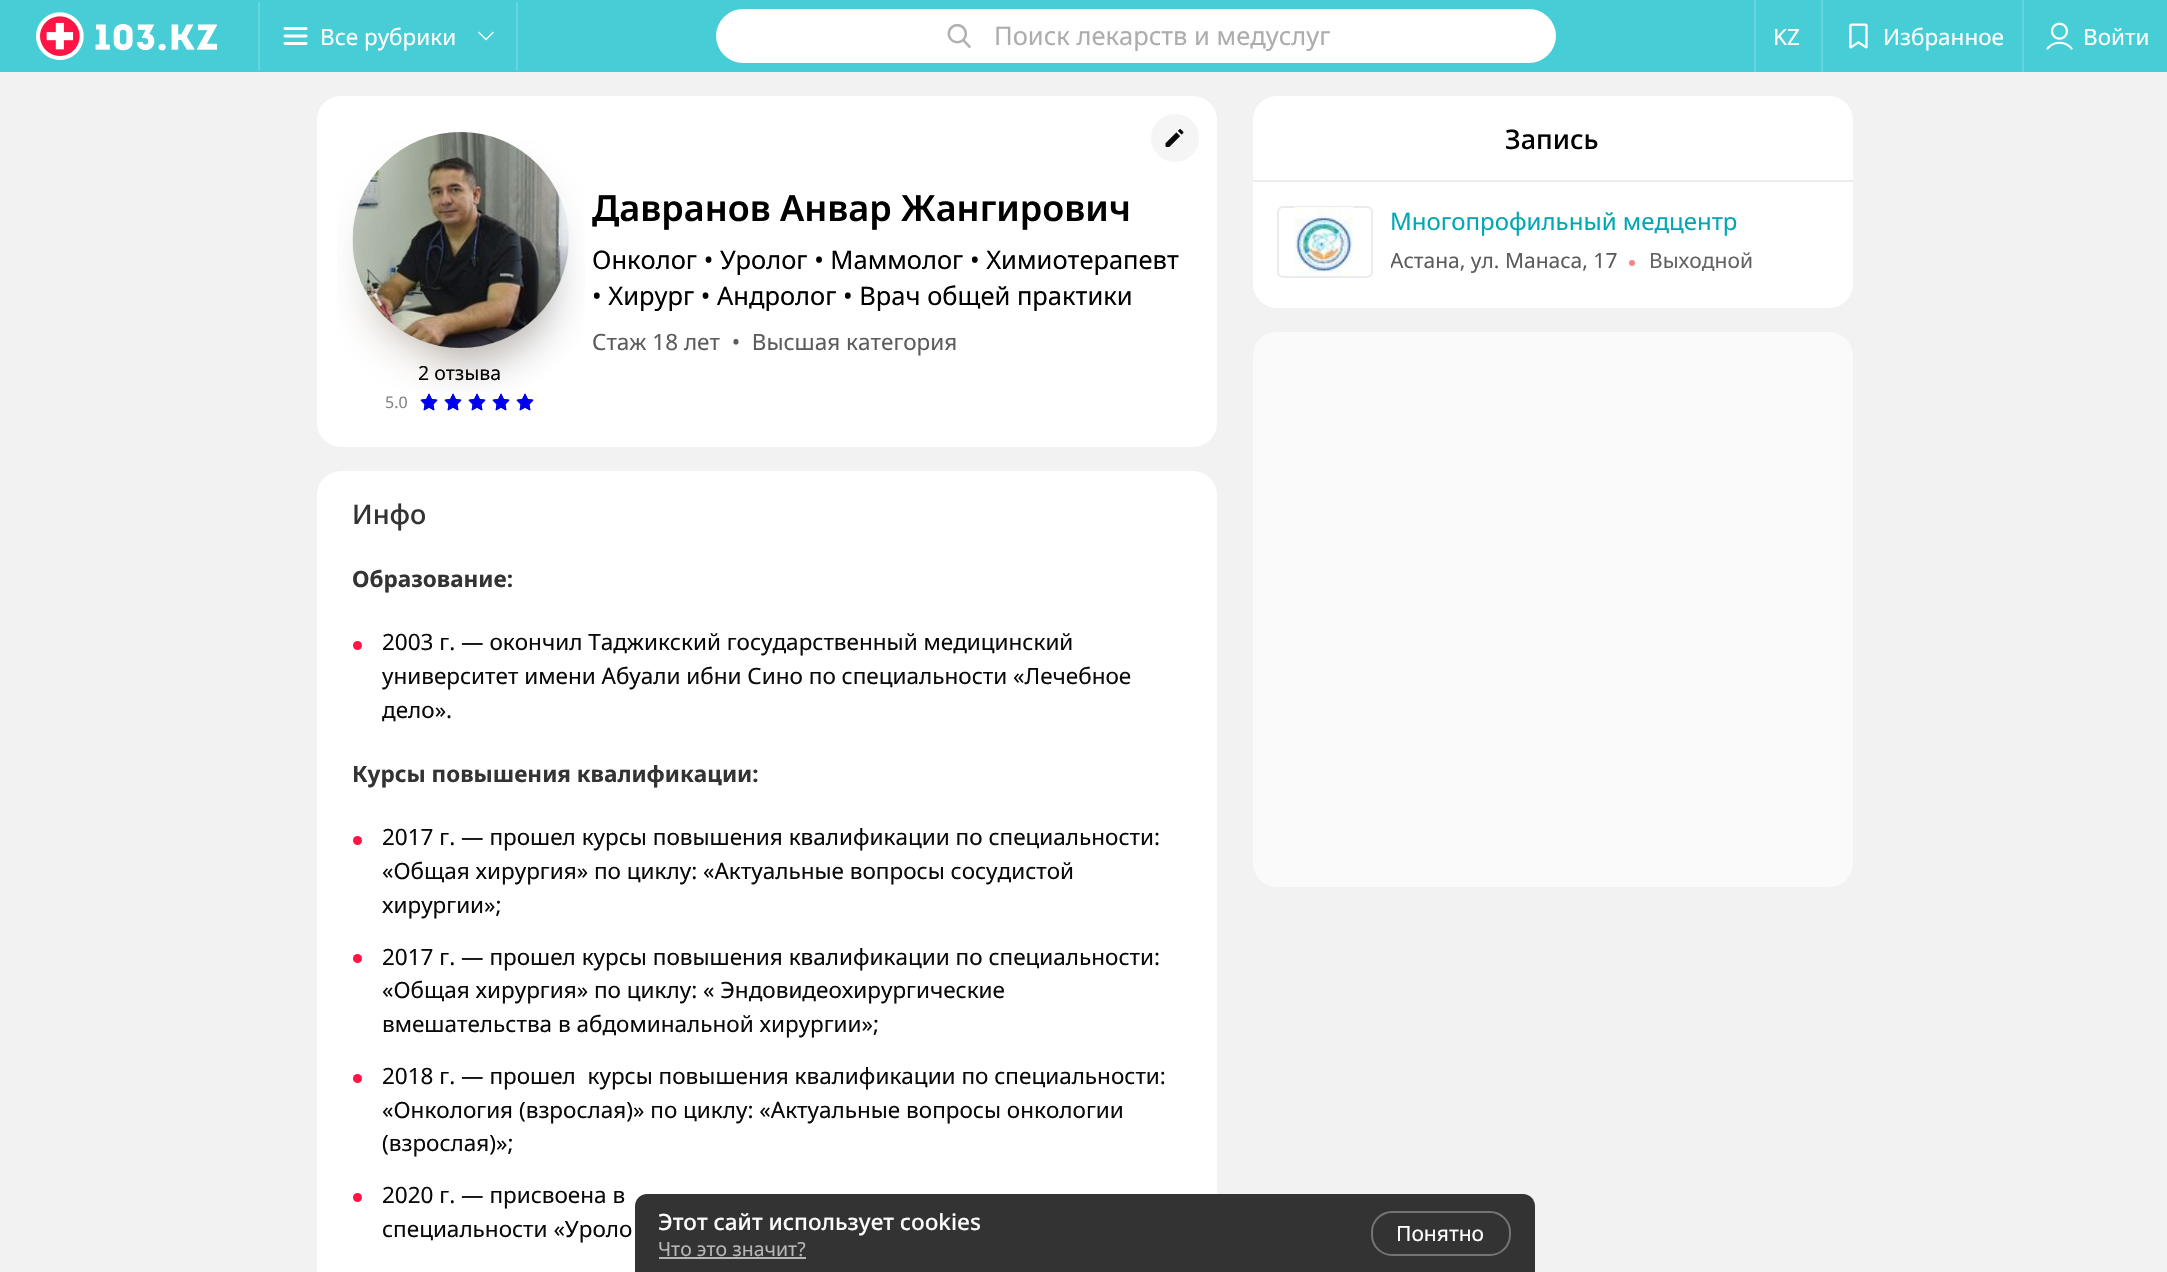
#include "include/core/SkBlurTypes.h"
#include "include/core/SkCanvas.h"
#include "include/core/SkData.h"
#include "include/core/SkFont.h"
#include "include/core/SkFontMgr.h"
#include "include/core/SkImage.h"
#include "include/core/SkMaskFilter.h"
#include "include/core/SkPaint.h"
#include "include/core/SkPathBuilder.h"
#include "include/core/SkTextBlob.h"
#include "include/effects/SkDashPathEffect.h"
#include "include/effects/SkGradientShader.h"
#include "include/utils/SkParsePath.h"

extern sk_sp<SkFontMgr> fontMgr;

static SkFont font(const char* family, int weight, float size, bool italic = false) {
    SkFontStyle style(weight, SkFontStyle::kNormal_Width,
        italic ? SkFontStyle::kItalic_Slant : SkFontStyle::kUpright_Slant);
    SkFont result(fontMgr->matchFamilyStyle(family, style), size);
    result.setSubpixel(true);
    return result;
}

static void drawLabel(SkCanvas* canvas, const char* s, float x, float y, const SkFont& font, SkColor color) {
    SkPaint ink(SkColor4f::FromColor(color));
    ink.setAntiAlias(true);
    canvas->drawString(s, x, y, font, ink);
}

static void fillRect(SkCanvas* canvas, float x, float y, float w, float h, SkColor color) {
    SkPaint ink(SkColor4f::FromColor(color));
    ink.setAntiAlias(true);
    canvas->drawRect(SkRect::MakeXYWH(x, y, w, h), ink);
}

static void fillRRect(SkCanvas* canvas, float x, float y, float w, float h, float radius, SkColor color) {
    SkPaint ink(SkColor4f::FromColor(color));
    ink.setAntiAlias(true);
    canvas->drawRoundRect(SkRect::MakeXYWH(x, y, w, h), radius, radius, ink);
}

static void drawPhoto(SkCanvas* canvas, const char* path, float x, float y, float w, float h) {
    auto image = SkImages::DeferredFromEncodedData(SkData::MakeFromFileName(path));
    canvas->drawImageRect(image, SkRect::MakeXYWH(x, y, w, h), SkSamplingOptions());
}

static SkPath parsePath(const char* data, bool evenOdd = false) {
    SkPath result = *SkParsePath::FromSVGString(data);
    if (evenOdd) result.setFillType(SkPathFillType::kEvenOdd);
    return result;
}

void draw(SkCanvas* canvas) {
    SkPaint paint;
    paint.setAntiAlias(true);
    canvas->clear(0xFFF2F2F2);
    fillRect(canvas, 0, 0, 2167, 72, 0xFF46CDD6);
    drawPhoto(canvas, "assets/img1.png", 36, 12, 182, 48);
    fillRect(canvas, 516, 2, 2, 69, 0xFF64D5DD);
    fillRect(canvas, 258, 2, 2, 69, 0xFF64D5DD);
    drawPhoto(canvas, "assets/img2.png", 283, 27, 25, 18);
    SkFont font1 = font("Noto Sans", 400, 22.5f);
    drawLabel(canvas, "Все рубрики", 320, 45, font1, 0xFFFFFFFF);
    paint.setColor(0xFFFFFFFF);
    canvas->drawPath(parsePath("M486 40.5L478 32.5L479 31.5L486 38.5L493 31.5L494 32.5Z"), paint);
    fillRRect(canvas, 716, 9, 840, 54, 27, 0xFFFFFFFF);
    drawPhoto(canvas, "assets/img3.png", 947, 23, 24, 25);
    SkFont font2 = font("Noto Sans", 400, 25.5f);
    drawLabel(canvas, "Поиск лекарств и медуслуг", 994, 45, font2, 0xFFADADAD);
    fillRect(canvas, 1754, 0, 2, 72, 0xFF64D5DD);
    drawLabel(canvas, "KZ", 1773, 45, font1, 0xFFFFFFFF);
    fillRect(canvas, 1821, 0, 2, 72, 0xFF64D5DD);
    drawPhoto(canvas, "assets/img4.png", 1849, 23, 19, 26);
    drawLabel(canvas, "Избранное", 1883, 45, font1, 0xFFFFFFFF);
    fillRect(canvas, 2022, 0, 2, 72, 0xFF64D5DD);
    drawPhoto(canvas, "assets/img5.png", 2046, 22, 27, 28);
    drawLabel(canvas, "Войти", 2083, 45, font1, 0xFFFFFFFF);
    fillRRect(canvas, 317, 96, 900, 351, 24, 0xFFFFFFFF);
    paint.setColor(0xFFF5F5F5);
    canvas->drawCircle(1175, 138, 24, paint);
    drawPhoto(canvas, "assets/img6.png", 1165, 129, 19, 18);
    SkFont font3 = font("Noto Sans", 600, 36);
    drawLabel(canvas, "Давранов Анвар Жангирович", 592, 221, font3, 0xFF000000);
    drawLabel(canvas, "Онколог • Уролог • Маммолог • Химиотерапевт", 592, 269, font2, 0xFF000000);
    drawLabel(canvas, "• Хирург • Андролог • Врач общей практики", 592, 305, font2, 0xFF000000);
    drawLabel(canvas, "Стаж 18 лет  •  Высшая категория", 592, 350, font1, 0xFF5C5C5C);
    canvas->drawCircle(461, 240, 108, paint);
    SkFont font4 = font("Noto Sans", 400, 19.5f);
    drawLabel(canvas, "2 отзыва", 418, 380, font4, 0xFF000000);
    drawPhoto(canvas, "assets/img8.png", 337, 139, 248, 253);
    drawPhoto(canvas, "assets/img7.png", 352, 132, 217, 216);
    SkFont font5 = font("Noto Sans", 400, 16);
    drawLabel(canvas, "5.0", 385, 408, font5, 0xFF858585);
    drawPhoto(canvas, "assets/img9.png", 420, 393, 18, 18);
    drawPhoto(canvas, "assets/img10.png", 420, 393, 18, 18);
    drawPhoto(canvas, "assets/img11.png", 444, 393, 18, 18);
    drawPhoto(canvas, "assets/img12.png", 444, 393, 18, 18);
    drawPhoto(canvas, "assets/img13.png", 468, 393, 18, 18);
    drawPhoto(canvas, "assets/img14.png", 468, 393, 18, 18);
    drawPhoto(canvas, "assets/img15.png", 492, 393, 18, 18);
    drawPhoto(canvas, "assets/img16.png", 492, 393, 18, 18);
    drawPhoto(canvas, "assets/img17.png", 516, 393, 18, 18);
    drawPhoto(canvas, "assets/img18.png", 516, 393, 18, 18);
    fillRRect(canvas, 317, 471, 900, 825, 24, 0xFFFFFFFF);
    SkFont font6 = font("Noto Sans", 500, 27);
    drawLabel(canvas, "Инфо", 352, 524, font6, 0xFF333333);
    SkFont font7 = font("Noto Sans", 700, 22.5f);
    drawLabel(canvas, "Образование:", 352, 587, font7, 0xFF333333);
    paint.setColor(0xFFFF1446);
    canvas->drawCircle(357.5f, 645.5f, 4.5f, paint);
    drawLabel(canvas, "2003 г. — окончил Таджикский государственный медицинский", 382, 650, font1, 0xFF0A0A0A);
    drawLabel(canvas, "университет имени Абуали ибни Сино по специальности «Лечебное", 382, 684, font1, 0xFF0A0A0A);
    drawLabel(canvas, "дело».", 382, 718, font1, 0xFF0A0A0A);
    drawLabel(canvas, "Курсы повышения квалификации:", 352, 782, font7, 0xFF333333);
    canvas->drawCircle(357.5f, 840.5f, 4.5f, paint);
    drawLabel(canvas, "2017 г. — прошел курсы повышения квалификации по специальности:", 382, 845, font1, 0xFF0A0A0A);
    drawLabel(canvas, "«Общая хирургия» по циклу: «Актуальные вопросы сосудистой", 382, 879, font1, 0xFF0A0A0A);
    drawLabel(canvas, "хирургии»;", 382, 913, font1, 0xFF0A0A0A);
    canvas->drawCircle(357.5f, 958.5f, 4.5f, paint);
    drawLabel(canvas, "2017 г. — прошел курсы повышения квалификации по специальности:", 382, 965, font1, 0xFF0A0A0A);
    drawLabel(canvas, "«Общая хирургия» по циклу: « Эндовидеохирургические", 382, 998, font1, 0xFF0A0A0A);
    drawLabel(canvas, "вмешательства в абдоминальной хирургии»;", 382, 1032, font1, 0xFF0A0A0A);
    canvas->drawCircle(357.5f, 1078.5f, 4.5f, paint);
    drawLabel(canvas, "2018 г. — прошел  курсы повышения квалификации по специальности:", 382, 1084, font1, 0xFF0A0A0A);
    drawLabel(canvas, "«Онкология (взрослая)» по циклу: «Актуальные вопросы онкологии", 382, 1118, font1, 0xFF0A0A0A);
    drawLabel(canvas, "(взрослая)»;", 382, 1151, font1, 0xFF0A0A0A);
    canvas->drawCircle(357.5f, 1197.5f, 4.5f, paint);
    drawLabel(canvas, "2020 г. — присвоена в", 382, 1203, font1, 0xFF0A0A0A);
    drawLabel(canvas, "специальности «Уроло", 382, 1237, font1, 0xFF0A0A0A);
    fillRRect(canvas, 1253, 96, 600, 212, 24, 0xFFFFFFFF);
    fillRect(canvas, 1253, 180, 600, 2, 0xFFEBEBEB);
    drawLabel(canvas, "Запись", 1505, 149, font6, 0xFF000000);
    paint.setStroke(true);
    paint.setStrokeWidth(2);
    paint.setColor(0xFFEBEBEB);
    canvas->drawRoundRect(SkRect::MakeXYWH(1278, 207, 94, 70), 5, 5, paint);
    drawPhoto(canvas, "assets/img19.png", 1294, 207, 59, 69);
    SkFont font8 = font("Noto Sans", 400, 24);
    drawLabel(canvas, "Многопрофильный медцентр", 1390, 230, font8, 0xFF00A8B4);
    canvas->save();
    canvas->clipRect(SkRect::MakeXYWH(1391, 206, 438, 72));
    SkFont font9 = font("Noto Sans", 400, 21);
    drawLabel(canvas, "Астана, ул. Манаса, 17", 1390, 268, font9, 0xFF5C5C5C);
    canvas->restore();
    paint.setStroke(false);
    paint.setColor(0xFFF38787);
    canvas->drawCircle(1632, 263, 3, paint);
    drawLabel(canvas, "Выходной", 1649, 268, font9, 0xFF636363);
    fillRRect(canvas, 1253, 332, 600, 555, 24, 0xA3FFFFFF);
    paint.setColor(0xFF333333);
    canvas->drawPath(parsePath("M647 1194H1523C1529.5 1194 1535 1199.5 1535 1206V1272H635V1206C635 1199.5 640.5 1194 647 1194Z"), paint);
    SkFont font10 = font("Noto Sans", 500, 22.5f);
    drawLabel(canvas, "Этот сайт использует cookies", 658, 1230, font10, 0xFFFFFFFF);
    drawLabel(canvas, "Что это значит?", 658, 1256, font4, 0xFFB6B6B6);
    fillRect(canvas, 659, 1257, 147, 2, 0xFFB6B6B6);
    paint.setStroke(true);
    paint.setColor(0xFF747474);
    canvas->drawRoundRect(SkRect::MakeXYWH(1372, 1212, 138, 43), 20, 20, paint);
    drawLabel(canvas, "Понятно", 1396, 1241, font9, 0xFFFFFFFF);
}
